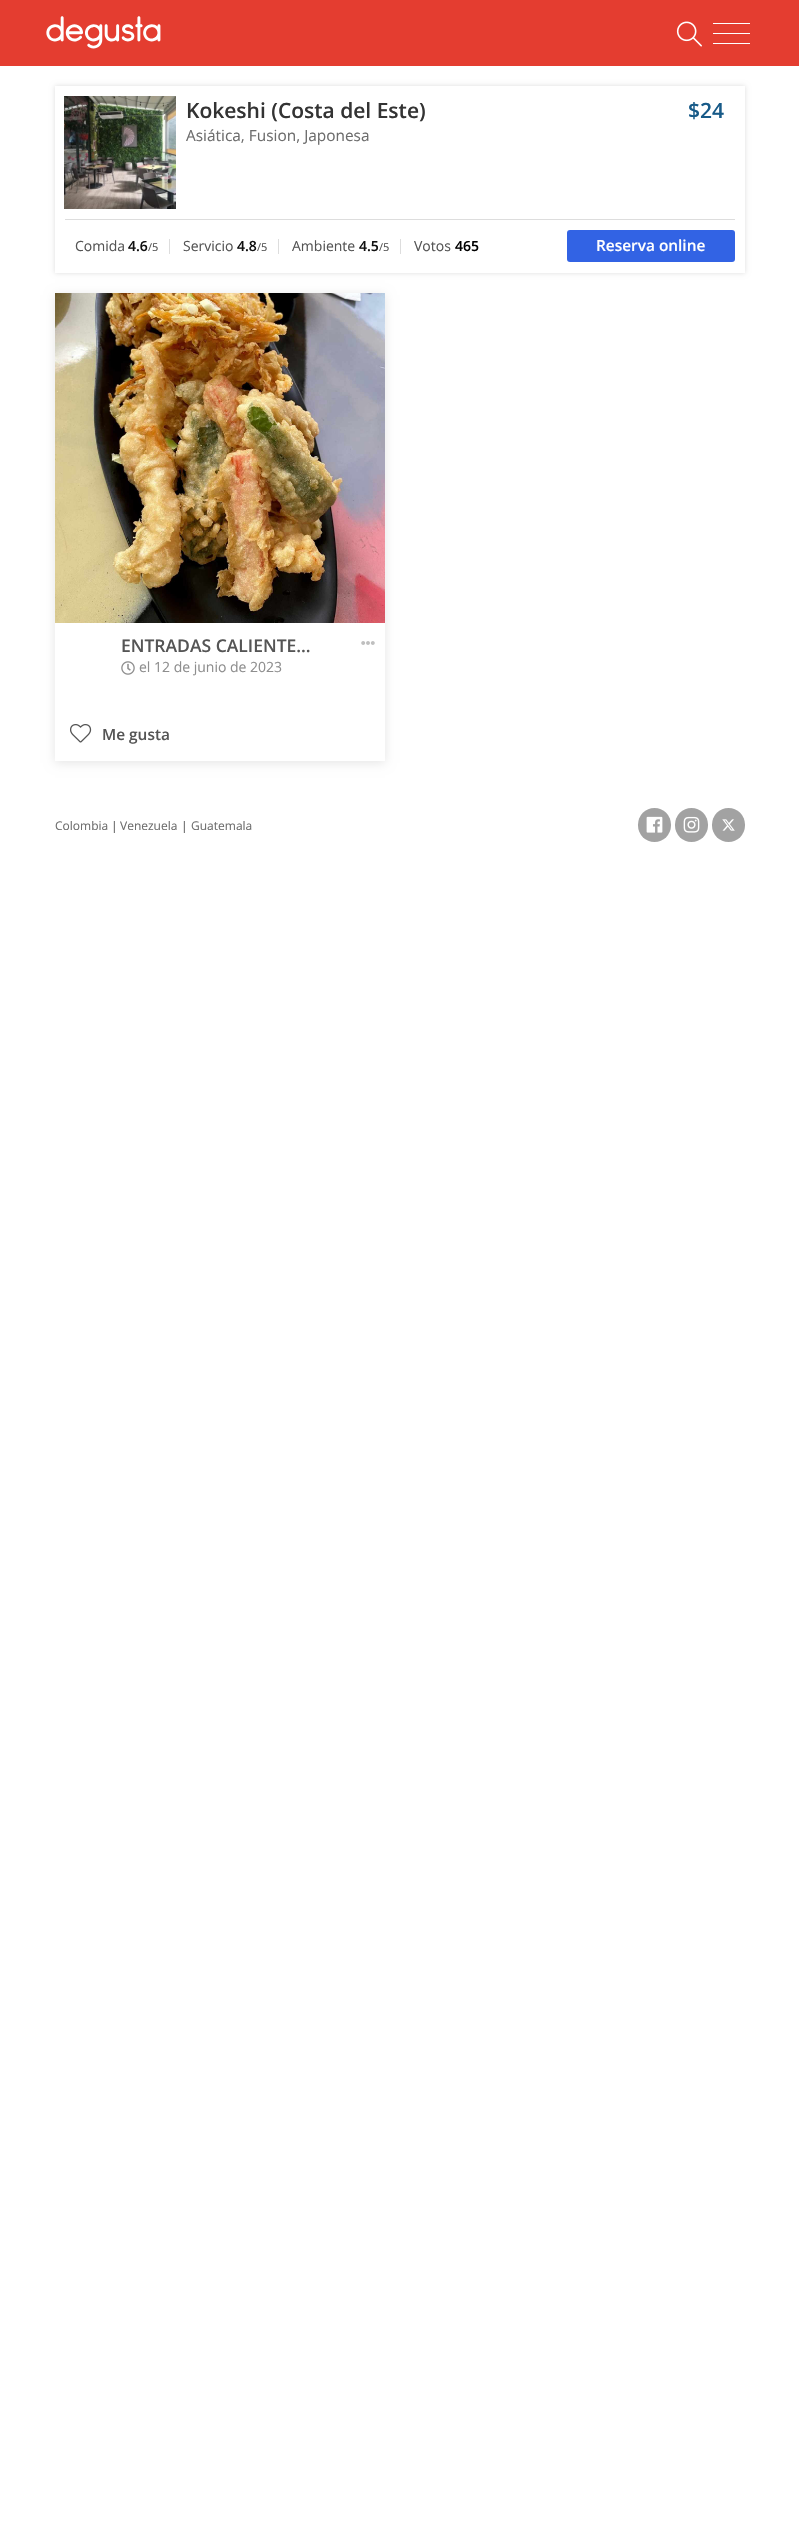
#include "include/core/SkBlurTypes.h"
#include "include/core/SkCanvas.h"
#include "include/core/SkData.h"
#include "include/core/SkFont.h"
#include "include/core/SkFontMgr.h"
#include "include/core/SkImage.h"
#include "include/core/SkMaskFilter.h"
#include "include/core/SkPaint.h"
#include "include/core/SkPathBuilder.h"
#include "include/core/SkTextBlob.h"
#include "include/effects/SkDashPathEffect.h"
#include "include/effects/SkGradientShader.h"
#include "include/utils/SkParsePath.h"

extern sk_sp<SkFontMgr> fontMgr;

static SkFont font(const char* family, int weight, float size, bool italic = false) {
    SkFontStyle style(weight, SkFontStyle::kNormal_Width,
        italic ? SkFontStyle::kItalic_Slant : SkFontStyle::kUpright_Slant);
    SkFont result(fontMgr->matchFamilyStyle(family, style), size);
    result.setSubpixel(true);
    return result;
}

static void drawLabel(SkCanvas* canvas, const char* s, float x, float y, const SkFont& font, SkColor color) {
    SkPaint ink(SkColor4f::FromColor(color));
    ink.setAntiAlias(true);
    canvas->drawString(s, x, y, font, ink);
}

static void fillRect(SkCanvas* canvas, float x, float y, float w, float h, SkColor color) {
    SkPaint ink(SkColor4f::FromColor(color));
    ink.setAntiAlias(true);
    canvas->drawRect(SkRect::MakeXYWH(x, y, w, h), ink);
}

static void fillRRect(SkCanvas* canvas, float x, float y, float w, float h, float radius, SkColor color) {
    SkPaint ink(SkColor4f::FromColor(color));
    ink.setAntiAlias(true);
    canvas->drawRoundRect(SkRect::MakeXYWH(x, y, w, h), radius, radius, ink);
}

static void drawPhoto(SkCanvas* canvas, const char* path, float x, float y, float w, float h) {
    auto image = SkImages::DeferredFromEncodedData(SkData::MakeFromFileName(path));
    canvas->drawImageRect(image, SkRect::MakeXYWH(x, y, w, h), SkSamplingOptions());
}

static SkPath parsePath(const char* data, bool evenOdd = false) {
    SkPath result = *SkParsePath::FromSVGString(data);
    if (evenOdd) result.setFillType(SkPathFillType::kEvenOdd);
    return result;
}

void draw(SkCanvas* canvas) {
    SkPaint paint;
    paint.setAntiAlias(true);
    canvas->clear(0xFFFFFFFF);
    fillRect(canvas, 0, 0, 799, 66, 0xFFE43D30);
    drawPhoto(canvas, "assets/img1.png", 46, 16, 115, 33);
    drawPhoto(canvas, "assets/img2.png", 676, 21, 26, 26);
    fillRect(canvas, 713, 23, 37, 1, 0xFFFFFFFF);
    fillRect(canvas, 713, 33, 37, 1, 0xFFFFFFFF);
    fillRect(canvas, 713, 43, 37, 1, 0xFFFFFFFF);
    canvas->save();
    canvas->clipPath(parsePath("M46 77H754V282H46ZM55 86H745V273H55Z", true), true);
    paint.setColor(0xFFDDDDDD);
    paint.setMaskFilter(SkMaskFilter::MakeBlur(kNormal_SkBlurStyle, 2.5f));
    canvas->drawRect(SkRect::MakeXYWH(55, 86, 690, 187), paint);
    paint.setMaskFilter(nullptr);
    canvas->restore();
    drawPhoto(canvas, "assets/img3.png", 64, 96, 112, 113);
    SkFont font1 = font("Open Sans", 600, 21);
    drawLabel(canvas, "Kokeshi (Costa del Este)", 186, 118, font1, 0xFF333333);
    SkFont font2 = font("Open Sans", 400, 15.4f);
    drawLabel(canvas, "Asiática, Fusion, Japonesa", 186, 141, font2, 0xFF6D6D6D);
    drawLabel(canvas, "$24", 688, 118, font1, 0xFF175A88);
    fillRect(canvas, 65, 219, 670, 1, 0xFFDDDDDD);
    SkFont font3 = font("Open Sans", 400, 14);
    drawLabel(canvas, "Comida", 75, 251, font3, 0xFF555555);
    SkFont font4 = font("Open Sans", 600, 14);
    drawLabel(canvas, "4.6", 128, 251, font4, 0xFF111111);
    SkFont font5 = font("Open Sans", 400, 11);
    drawLabel(canvas, "/5", 148, 251, font5, 0xFF555555);
    fillRect(canvas, 169, 239, 1, 15, 0xFFDDDDDD);
    drawLabel(canvas, "Servicio", 183, 251, font3, 0xFF555555);
    drawLabel(canvas, "4.8", 237, 251, font4, 0xFF111111);
    drawLabel(canvas, "/5", 257, 251, font5, 0xFF555555);
    fillRect(canvas, 278, 239, 1, 15, 0xFFDDDDDD);
    drawLabel(canvas, "Ambiente", 292, 251, font3, 0xFF555555);
    drawLabel(canvas, "4.5", 359, 251, font4, 0xFF111111);
    drawLabel(canvas, "/5", 379, 251, font5, 0xFF555555);
    fillRect(canvas, 400, 239, 1, 15, 0xFFDDDDDD);
    drawLabel(canvas, "Votos", 414, 251, font3, 0xFF555555);
    drawLabel(canvas, "465", 455, 251, font4, 0xFF000000);
    fillRRect(canvas, 567, 230, 168, 32, 3, 0xFF3263E4);
    SkFont font6 = font("Open Sans", 600, 15.4f);
    drawLabel(canvas, "Reserva online", 596, 251, font6, 0xFFFFFFFF);
    canvas->save();
    canvas->clipPath(parsePath("M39 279H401V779H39ZM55 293H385V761H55Z", true), true);
    paint.setColor(0x1A000000);
    paint.setMaskFilter(SkMaskFilter::MakeBlur(kNormal_SkBlurStyle, 5));
    canvas->drawRect(SkRect::MakeXYWH(55, 295, 330, 468), paint);
    paint.setMaskFilter(nullptr);
    canvas->restore();
    drawPhoto(canvas, "assets/img4.png", 55, 293, 330, 330);
    SkFont font7 = font("Open Sans", 600, 17.5f);
    drawLabel(canvas, "ENTRADAS CALIENTE…", 121, 652, font7, 0xFF555555);
    drawPhoto(canvas, "assets/img5.png", 121, 661, 14, 14);
    drawLabel(canvas, "el 12 de junio de 2023", 139, 672, font3, 0xFF8E8E8E);
    drawPhoto(canvas, "assets/img6.png", 361, 641, 14, 4);
    drawPhoto(canvas, "assets/img7.png", 70, 724, 22, 19);
    drawLabel(canvas, "Me gusta", 102, 740, font6, 0xFF555555);
    SkFont font8 = font("Open Sans", 400, 12);
    drawLabel(canvas, "Colombia", 55, 830, font8, 0xFF6D6D6D);
    drawLabel(canvas, "|", 111, 830, font8, 0xFF555555);
    drawLabel(canvas, "Venezuela", 120, 830, font8, 0xFF6D6D6D);
    drawLabel(canvas, "|", 181, 830, font8, 0xFF555555);
    drawLabel(canvas, "Guatemala", 191, 830, font8, 0xFF6D6D6D);
    fillRRect(canvas, 638, 808, 33, 34, 16.5f, 0xFFA2A2A2);
    drawPhoto(canvas, "assets/img8.png", 646, 816, 17, 17);
    fillRRect(canvas, 675, 808, 33, 34, 16.5f, 0xFFA2A2A2);
    drawPhoto(canvas, "assets/img9.png", 683, 816, 17, 17);
    fillRRect(canvas, 712, 808, 33, 34, 16.5f, 0xFFA2A2A2);
    drawPhoto(canvas, "assets/img10.png", 722, 819, 13, 12);
}
